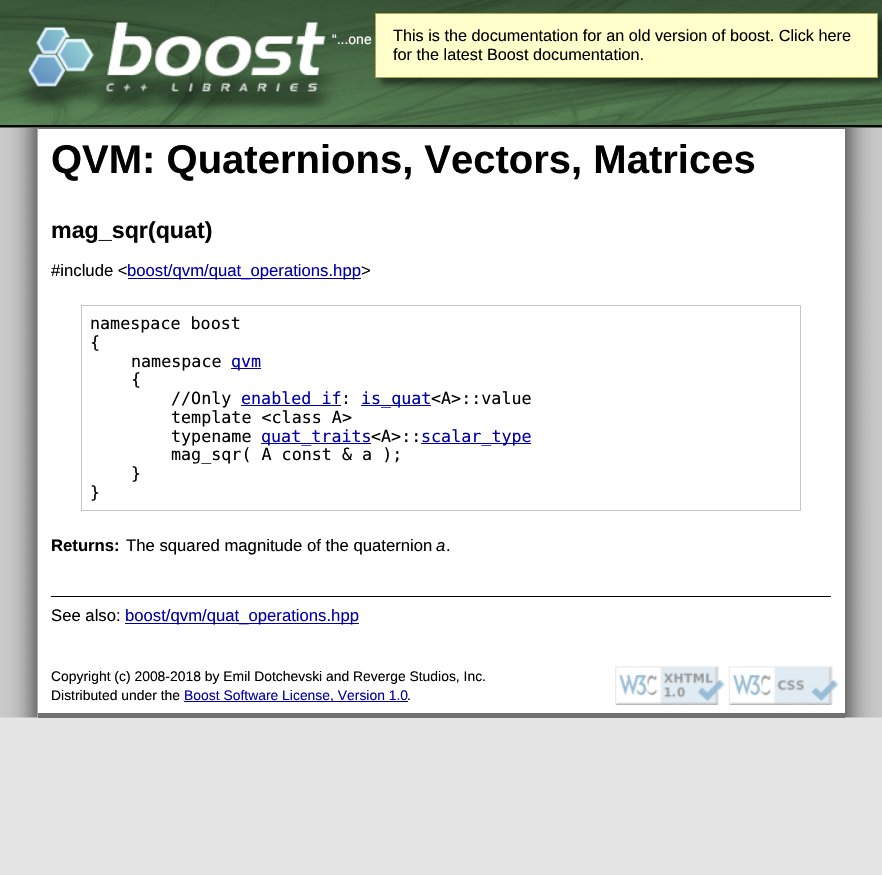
#include "include/core/SkBlurTypes.h"
#include "include/core/SkCanvas.h"
#include "include/core/SkData.h"
#include "include/core/SkFont.h"
#include "include/core/SkFontMgr.h"
#include "include/core/SkImage.h"
#include "include/core/SkMaskFilter.h"
#include "include/core/SkPaint.h"
#include "include/core/SkPathBuilder.h"
#include "include/core/SkTextBlob.h"
#include "include/effects/SkDashPathEffect.h"
#include "include/effects/SkGradientShader.h"
#include "include/utils/SkParsePath.h"

extern sk_sp<SkFontMgr> fontMgr;

static SkFont font(const char* family, int weight, float size, bool italic = false) {
    SkFontStyle style(weight, SkFontStyle::kNormal_Width,
        italic ? SkFontStyle::kItalic_Slant : SkFontStyle::kUpright_Slant);
    SkFont result(fontMgr->matchFamilyStyle(family, style), size);
    result.setSubpixel(true);
    return result;
}

static void drawLabel(SkCanvas* canvas, const char* s, float x, float y, const SkFont& font, SkColor color) {
    SkPaint ink(SkColor4f::FromColor(color));
    ink.setAntiAlias(true);
    canvas->drawString(s, x, y, font, ink);
}

static void fillRect(SkCanvas* canvas, float x, float y, float w, float h, SkColor color) {
    SkPaint ink(SkColor4f::FromColor(color));
    ink.setAntiAlias(true);
    canvas->drawRect(SkRect::MakeXYWH(x, y, w, h), ink);
}

static void drawPhoto(SkCanvas* canvas, const char* path, float x, float y, float w, float h) {
    auto image = SkImages::DeferredFromEncodedData(SkData::MakeFromFileName(path));
    canvas->drawImageRect(image, SkRect::MakeXYWH(x, y, w, h), SkSamplingOptions());
}

void draw(SkCanvas* canvas) {
    SkPaint paint;
    paint.setAntiAlias(true);
    canvas->clear(0xFFE5E5E5);
    fillRect(canvas, 0, 127, 882, 1, 0xFF4F744D);
    fillRect(canvas, 0, 125, 882, 2, 0xFF000000);
    drawPhoto(canvas, "assets/img1.png", 0, 0, 882, 125);
    SkFont font1 = font("Liberation Sans", 400, 14);
    drawLabel(canvas, "“...one", 332, 44, font1, 0xFFFFFFFF);
    paint.setColor(0x80000000);
    paint.setMaskFilter(SkMaskFilter::MakeBlur(kNormal_SkBlurStyle, 3));
    canvas->drawRect(SkRect::MakeXYWH(381, 19, 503, 65), paint);
    paint.setMaskFilter(nullptr);
    paint.setColor(0xFFFFFFCC);
    canvas->drawRect(SkRect::MakeXYWH(375.5f, 13.5f, 502, 64), paint);
    paint.setStroke(true);
    paint.setStrokeWidth(1);
    paint.setColor(0xFFAAAA55);
    canvas->drawRect(SkRect::MakeXYWH(375.5f, 13.5f, 502, 64), paint);
    SkFont font2 = font("Liberation Sans", 400, 16.25f);
    drawLabel(canvas, "This is the documentation for an old version of boost. Click here", 393, 41, font2, 0xFF000000);
    drawLabel(canvas, "for the latest Boost documentation.", 393, 60, font2, 0xFF000000);
    drawPhoto(canvas, "assets/img2.png", 0, 128, 38, 590);
    drawPhoto(canvas, "assets/img3.png", 845, 128, 37, 590);
    fillRect(canvas, 38, 129, 807, 584, 0xFFFFFFFF);
    fillRect(canvas, 38, 128, 807, 1, 0xFF717171);
    fillRect(canvas, 38, 713, 807, 5, 0xFF717171);
    SkFont font3 = font("Liberation Sans", 700, 40);
    drawLabel(canvas, "QVM: Quaternions, Vectors, Matrices", 51, 173, font3, 0xFF000000);
    SkFont font4 = font("Liberation Sans", 700, 23.25f);
    drawLabel(canvas, "mag_sqr(quat)", 51, 238, font4, 0xFF000000);
    SkFont font5 = font("Liberation Sans", 400, 16.7f);
    drawLabel(canvas, "#include <", 51, 276, font5, 0xFF000000);
    fillRect(canvas, 128, 278, 233, 1, 0xFF0000AA);
    drawLabel(canvas, "boost/qvm/quat_operations.hpp", 127, 276, font5, 0xFF0000AA);
    drawLabel(canvas, ">", 361, 276, font5, 0xFF000000);
    paint.setColor(0xFFC5C5C5);
    canvas->drawRect(SkRect::MakeXYWH(81.5f, 305.5f, 719, 205), paint);
    SkFont font6 = font("DejaVu Sans Mono", 400, 16.7f);
    drawLabel(canvas, "namespace boost", 90, 329, font6, 0xFF000000);
    drawLabel(canvas, "{", 90, 348, font6, 0xFF000000);
    drawLabel(canvas, "namespace", 131, 367, font6, 0xFF000000);
    fillRect(canvas, 231, 368, 30, 1, 0xFF0000AA);
    drawLabel(canvas, "qvm", 231, 367, font6, 0xFF0000AA);
    drawLabel(canvas, "{", 131, 385, font6, 0xFF000000);
    drawLabel(canvas, "//Only", 171, 404, font6, 0xFF000000);
    drawLabel(canvas, "enabled if", 241, 404, font6, 0xFF0000AA);
    fillRect(canvas, 241, 405, 100, 1, 0xFF0000AA);
    drawLabel(canvas, ":", 341, 404, font6, 0xFF000000);
    fillRect(canvas, 361, 405, 70, 1, 0xFF0000AA);
    drawLabel(canvas, "is_quat", 361, 404, font6, 0xFF0000AA);
    drawLabel(canvas, "<A>::value", 431, 404, font6, 0xFF000000);
    drawLabel(canvas, "template <class A>", 171, 423, font6, 0xFF000000);
    drawLabel(canvas, "typename", 171, 442, font6, 0xFF000000);
    fillRect(canvas, 261, 443, 110, 1, 0xFF0000AA);
    drawLabel(canvas, "quat_traits", 261, 442, font6, 0xFF0000AA);
    drawLabel(canvas, "<A>::", 371, 442, font6, 0xFF000000);
    fillRect(canvas, 421, 443, 110, 1, 0xFF0000AA);
    drawLabel(canvas, "scalar_type", 421, 442, font6, 0xFF0000AA);
    drawLabel(canvas, "mag_sqr( A const & a );", 171, 460, font6, 0xFF000000);
    drawLabel(canvas, "}", 131, 479, font6, 0xFF000000);
    drawLabel(canvas, "}", 90, 498, font6, 0xFF000000);
    SkFont font7 = font("Liberation Sans", 700, 16.7f);
    drawLabel(canvas, "Returns:", 51, 551, font7, 0xFF000000);
    drawLabel(canvas, "The squared magnitude of the quaternion", 126, 551, font5, 0xFF000000);
    SkFont font8 = font("Liberation Sans", 400, 16.7f, true);
    drawLabel(canvas, "a", 436, 551, font8, 0xFF000000);
    drawLabel(canvas, ".", 446, 551, font5, 0xFF000000);
    fillRect(canvas, 51, 596, 780, 1, 0xFF000000);
    drawLabel(canvas, "See also:", 51, 621, font5, 0xFF000000);
    fillRect(canvas, 125, 623, 234, 1, 0xFF0000AA);
    drawLabel(canvas, "boost/qvm/quat_operations.hpp", 125, 621, font5, 0xFF0000AA);
    SkFont font9 = font("Liberation Sans", 400, 13.9f);
    drawLabel(canvas, "Copyright (c) 2008-2018 by Emil Dotchevski and Reverge Studios, Inc.", 51, 681, font9, 0xFF000000);
    drawPhoto(canvas, "assets/img4.png", 615, 666, 110, 39);
    drawPhoto(canvas, "assets/img5.png", 728, 666, 111, 39);
    drawLabel(canvas, "Distributed under the", 51, 700, font9, 0xFF000000);
    fillRect(canvas, 184, 701, 224, 1, 0xFF0000AA);
    drawLabel(canvas, "Boost Software License, Version 1.0", 184, 700, font9, 0xFF0000AA);
    drawLabel(canvas, ".", 407, 700, font9, 0xFF000000);
}
